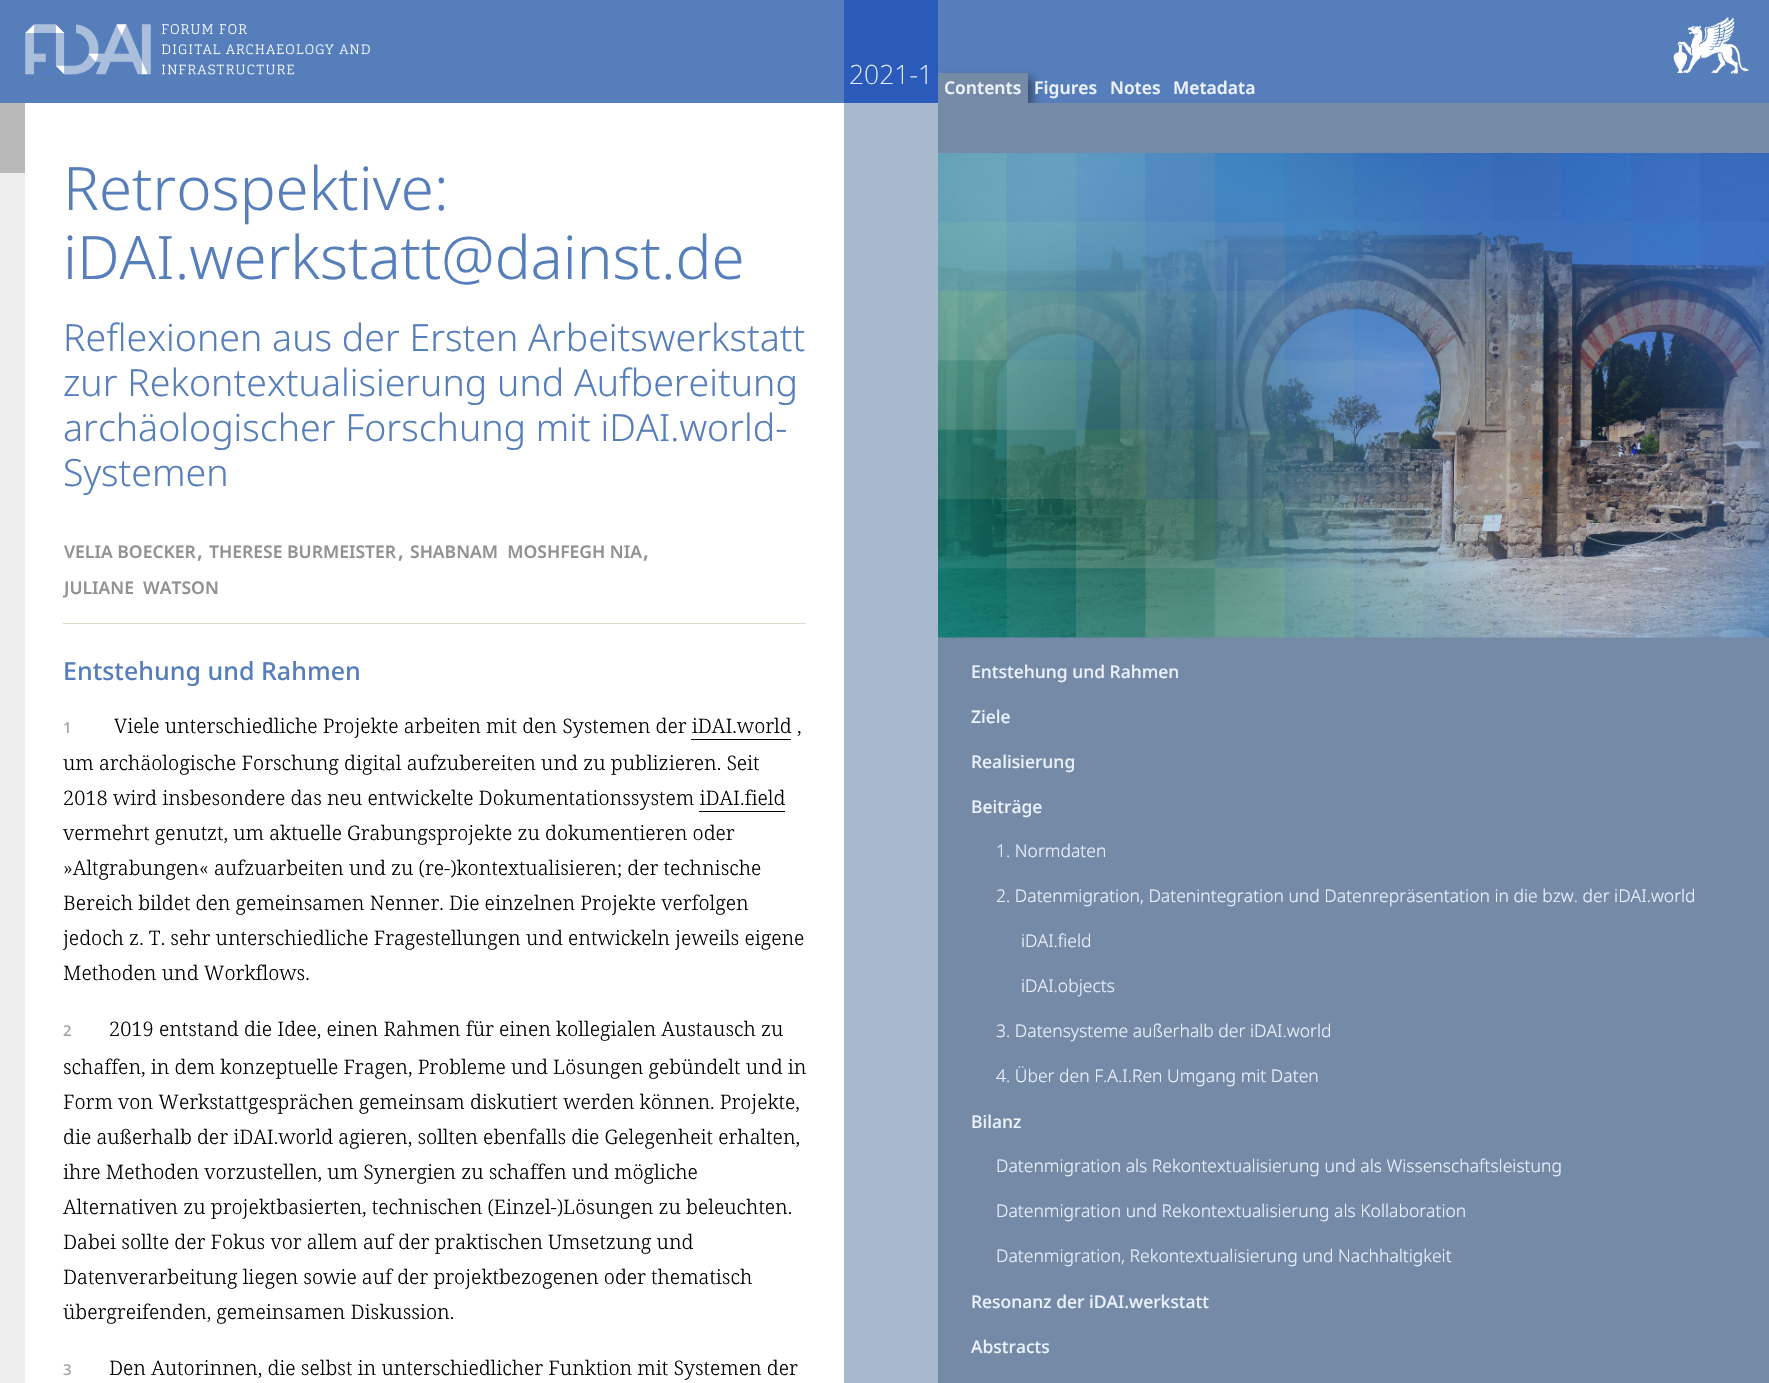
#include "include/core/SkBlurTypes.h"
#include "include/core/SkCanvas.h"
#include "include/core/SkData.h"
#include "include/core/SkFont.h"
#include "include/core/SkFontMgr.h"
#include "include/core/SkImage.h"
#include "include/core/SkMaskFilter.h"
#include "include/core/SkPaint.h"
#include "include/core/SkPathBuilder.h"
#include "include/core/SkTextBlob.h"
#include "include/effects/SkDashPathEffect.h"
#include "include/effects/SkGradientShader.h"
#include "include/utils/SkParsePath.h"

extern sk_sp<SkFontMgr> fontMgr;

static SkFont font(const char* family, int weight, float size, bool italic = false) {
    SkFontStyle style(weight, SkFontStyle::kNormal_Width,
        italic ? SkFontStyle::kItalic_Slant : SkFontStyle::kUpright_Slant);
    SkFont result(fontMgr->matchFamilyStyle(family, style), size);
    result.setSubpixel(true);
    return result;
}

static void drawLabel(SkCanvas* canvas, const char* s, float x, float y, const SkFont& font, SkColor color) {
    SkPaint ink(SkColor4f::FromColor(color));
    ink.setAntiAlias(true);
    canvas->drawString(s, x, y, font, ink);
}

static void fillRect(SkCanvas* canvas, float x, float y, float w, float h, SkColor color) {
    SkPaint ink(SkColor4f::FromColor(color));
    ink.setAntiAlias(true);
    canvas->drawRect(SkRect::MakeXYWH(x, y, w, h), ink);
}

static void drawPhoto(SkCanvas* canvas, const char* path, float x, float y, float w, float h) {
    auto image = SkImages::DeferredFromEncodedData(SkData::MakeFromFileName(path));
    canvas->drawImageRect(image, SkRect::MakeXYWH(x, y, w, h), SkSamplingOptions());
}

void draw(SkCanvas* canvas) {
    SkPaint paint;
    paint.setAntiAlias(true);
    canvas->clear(0xFFFFFFFF);
    fillRect(canvas, 0, 173, 25, 1210, 0xFFEEEEEE);
    fillRect(canvas, 0, 103, 25, 70, 0xFFB9B9B9);
    fillRect(canvas, 63, 623, 743, 1, 0xFFDEDACE);
    fillRect(canvas, 0, 0, 844, 103, 0xFF557EBB);
    drawPhoto(canvas, "assets/img1.png", 25, 24, 345, 51);
    fillRect(canvas, 844, 0, 94, 103, 0xFF2B5BBA);
    SkFont font1 = font("Noto Sans", 200, 26.5f);
    drawLabel(canvas, "2021-1", 849, 84, font1, 0xFFEBF1FD);
    SkFont font2 = font("Noto Sans", 300, 60);
    drawLabel(canvas, "Retrospektive:", 63, 210, font2, 0xFF557EBB);
    drawLabel(canvas, "iDAI.werkstatt@dainst.de", 63, 279, font2, 0xFF557EBB);
    SkFont font3 = font("Noto Sans", 300, 37.5f);
    drawLabel(canvas, "Reflexionen aus der Ersten Arbeitswerkstatt", 63, 351, font3, 0xFF557EBB);
    drawLabel(canvas, "zur Rekontextualisierung und Aufbereitung", 63, 396, font3, 0xFF557EBB);
    drawLabel(canvas, "archäologischer Forschung mit iDAI.world-", 63, 441, font3, 0xFF557EBB);
    drawLabel(canvas, "Systemen", 63, 486, font3, 0xFF557EBB);
    SkFont font4 = font("Noto Sans", 600, 17.5f);
    drawLabel(canvas, "VELIA BOECKER", 64, 558, font4, 0xFF929292);
    SkFont font5 = font("Noto Sans", 600, 21);
    drawLabel(canvas, ",", 197, 558, font5, 0xFF929292);
    drawLabel(canvas, "THERESE BURMEISTER", 209, 558, font4, 0xFF929292);
    drawLabel(canvas, ",", 398, 558, font5, 0xFF929292);
    drawLabel(canvas, "SHABNAM  MOSHFEGH NIA", 410, 558, font4, 0xFF929292);
    drawLabel(canvas, ",", 643, 558, font5, 0xFF929292);
    canvas->save();
    canvas->clipRect(SkRect::MakeXYWH(63, 495, 743, 110));
    drawLabel(canvas, "JULIANE  WATSON", 64, 594, font4, 0xFF929292);
    canvas->restore();
    SkFont font6 = font("Noto Sans", 500, 25);
    drawLabel(canvas, "Entstehung und Rahmen", 63, 680, font6, 0xFF557EBB);
    SkFont font7 = font("Noto Sans", 500, 15);
    drawLabel(canvas, "1", 63, 733, font7, 0xFFA2A2A2);
    SkFont font8 = font("Noto Serif", 300, 20);
    drawLabel(canvas, "Viele unterschiedliche Projekte arbeiten mit den Systemen der iDAI.world ,", 114, 733, font8, 0xFF000000);
    fillRect(canvas, 691, 739, 100, 1, 0xFF000000);
    drawLabel(canvas, "um archäologische Forschung digital aufzubereiten und zu publizieren. Seit", 63, 770, font8, 0xFF000000);
    drawLabel(canvas, "2018 wird insbesondere das neu entwickelte Dokumentationssystem iDAI.field", 63, 805, font8, 0xFF000000);
    fillRect(canvas, 699, 811, 86, 1, 0xFF000000);
    drawLabel(canvas, "vermehrt genutzt, um aktuelle Grabungsprojekte zu dokumentieren oder", 63, 840, font8, 0xFF000000);
    drawLabel(canvas, "»Altgrabungen« aufzuarbeiten und zu (re-)kontextualisieren; der technische", 63, 875, font8, 0xFF000000);
    drawLabel(canvas, "Bereich bildet den gemeinsamen Nenner. Die einzelnen Projekte verfolgen", 63, 910, font8, 0xFF000000);
    drawLabel(canvas, "jedoch z. T. sehr unterschiedliche Fragestellungen und entwickeln jeweils eigene", 63, 945, font8, 0xFF000000);
    drawLabel(canvas, "Methoden und Workflows.", 63, 980, font8, 0xFF000000);
    drawLabel(canvas, "2", 63, 1036, font7, 0xFFA2A2A2);
    drawLabel(canvas, "2019 entstand die Idee, einen Rahmen für einen kollegialen Austausch zu", 109, 1036, font8, 0xFF000000);
    drawLabel(canvas, "schaffen, in dem konzeptuelle Fragen, Probleme und Lösungen gebündelt und in", 63, 1074, font8, 0xFF000000);
    drawLabel(canvas, "Form von Werkstattgesprächen gemeinsam diskutiert werden können. Projekte,", 63, 1109, font8, 0xFF000000);
    drawLabel(canvas, "die außerhalb der iDAI.world agieren, sollten ebenfalls die Gelegenheit erhalten,", 63, 1144, font8, 0xFF000000);
    drawLabel(canvas, "ihre Methoden vorzustellen, um Synergien zu schaffen und mögliche", 63, 1179, font8, 0xFF000000);
    drawLabel(canvas, "Alternativen zu projektbasierten, technischen (Einzel-)Lösungen zu beleuchten.", 63, 1214, font8, 0xFF000000);
    drawLabel(canvas, "Dabei sollte der Fokus vor allem auf der praktischen Umsetzung und", 63, 1249, font8, 0xFF000000);
    drawLabel(canvas, "Datenverarbeitung liegen sowie auf der projektbezogenen oder thematisch", 63, 1284, font8, 0xFF000000);
    drawLabel(canvas, "übergreifenden, gemeinsamen Diskussion.", 63, 1319, font8, 0xFF000000);
    drawLabel(canvas, "3", 63, 1375, font7, 0xFFA2A2A2);
    drawLabel(canvas, "Den Autorinnen, die selbst in unterschiedlicher Funktion mit Systemen der", 109, 1375, font8, 0xFF000000);
    fillRect(canvas, 844, 103, 94, 1280, 0xFFA8B9CE);
    fillRect(canvas, 938, 0, 831, 103, 0xFF557EBB);
    drawPhoto(canvas, "assets/img2.png", 1673, 17, 76, 57);
    fillRect(canvas, 938, 103, 831, 1280, 0xFF758AA6);
    canvas->save();
    canvas->clipRect(SkRect::MakeXYWH(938, 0, 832, 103));
    paint.setColor(0x66000000);
    paint.setMaskFilter(SkMaskFilter::MakeBlur(kNormal_SkBlurStyle, 5));
    canvas->drawRect(SkRect::MakeXYWH(943, 78, 90, 30), paint);
    paint.setMaskFilter(nullptr);
    canvas->restore();
    fillRect(canvas, 938, 73, 90, 30, 0xFF758AA6);
    drawLabel(canvas, "Contents", 944, 94, font4, 0xFFEBF1FD);
    drawLabel(canvas, "Figures", 1034, 94, font4, 0xFFEBF1FD);
    drawLabel(canvas, "Notes", 1110, 94, font4, 0xFFEBF1FD);
    drawLabel(canvas, "Metadata", 1173, 94, font4, 0xFFEBF1FD);
    drawPhoto(canvas, "assets/img3.png", 938, 153, 831, 485);
    SkFont font9 = font("Noto Sans", 500, 17.5f);
    drawLabel(canvas, "Entstehung und Rahmen", 971, 678, font9, 0xFFEBF1FD);
    drawLabel(canvas, "Ziele", 971, 723, font9, 0xFFEBF1FD);
    drawLabel(canvas, "Realisierung", 971, 768, font9, 0xFFEBF1FD);
    drawLabel(canvas, "Beiträge", 971, 813, font9, 0xFFEBF1FD);
    SkFont font10 = font("Noto Sans", 300, 17.5f);
    drawLabel(canvas, "1. Normdaten", 996, 857, font10, 0xFFEBF1FD);
    drawLabel(canvas, "2. Datenmigration, Datenintegration und Datenrepräsentation in die bzw. der iDAI.world", 996, 902, font10, 0xFFEBF1FD);
    drawLabel(canvas, "iDAI.field", 1021, 947, font10, 0xFFEBF1FD);
    drawLabel(canvas, "iDAI.objects", 1021, 992, font10, 0xFFEBF1FD);
    drawLabel(canvas, "3. Datensysteme außerhalb der iDAI.world", 996, 1037, font10, 0xFFEBF1FD);
    drawLabel(canvas, "4. Über den F.A.I.Ren Umgang mit Daten", 996, 1082, font10, 0xFFEBF1FD);
    drawLabel(canvas, "Bilanz", 971, 1128, font9, 0xFFEBF1FD);
    drawLabel(canvas, "Datenmigration als Rekontextualisierung und als Wissenschaftsleistung", 996, 1172, font10, 0xFFEBF1FD);
    drawLabel(canvas, "Datenmigration und Rekontextualisierung als Kollaboration", 996, 1217, font10, 0xFFEBF1FD);
    drawLabel(canvas, "Datenmigration, Rekontextualisierung und Nachhaltigkeit", 996, 1262, font10, 0xFFEBF1FD);
    drawLabel(canvas, "Resonanz der iDAI.werkstatt", 971, 1308, font9, 0xFFEBF1FD);
    drawLabel(canvas, "Abstracts", 971, 1353, font9, 0xFFEBF1FD);
}
